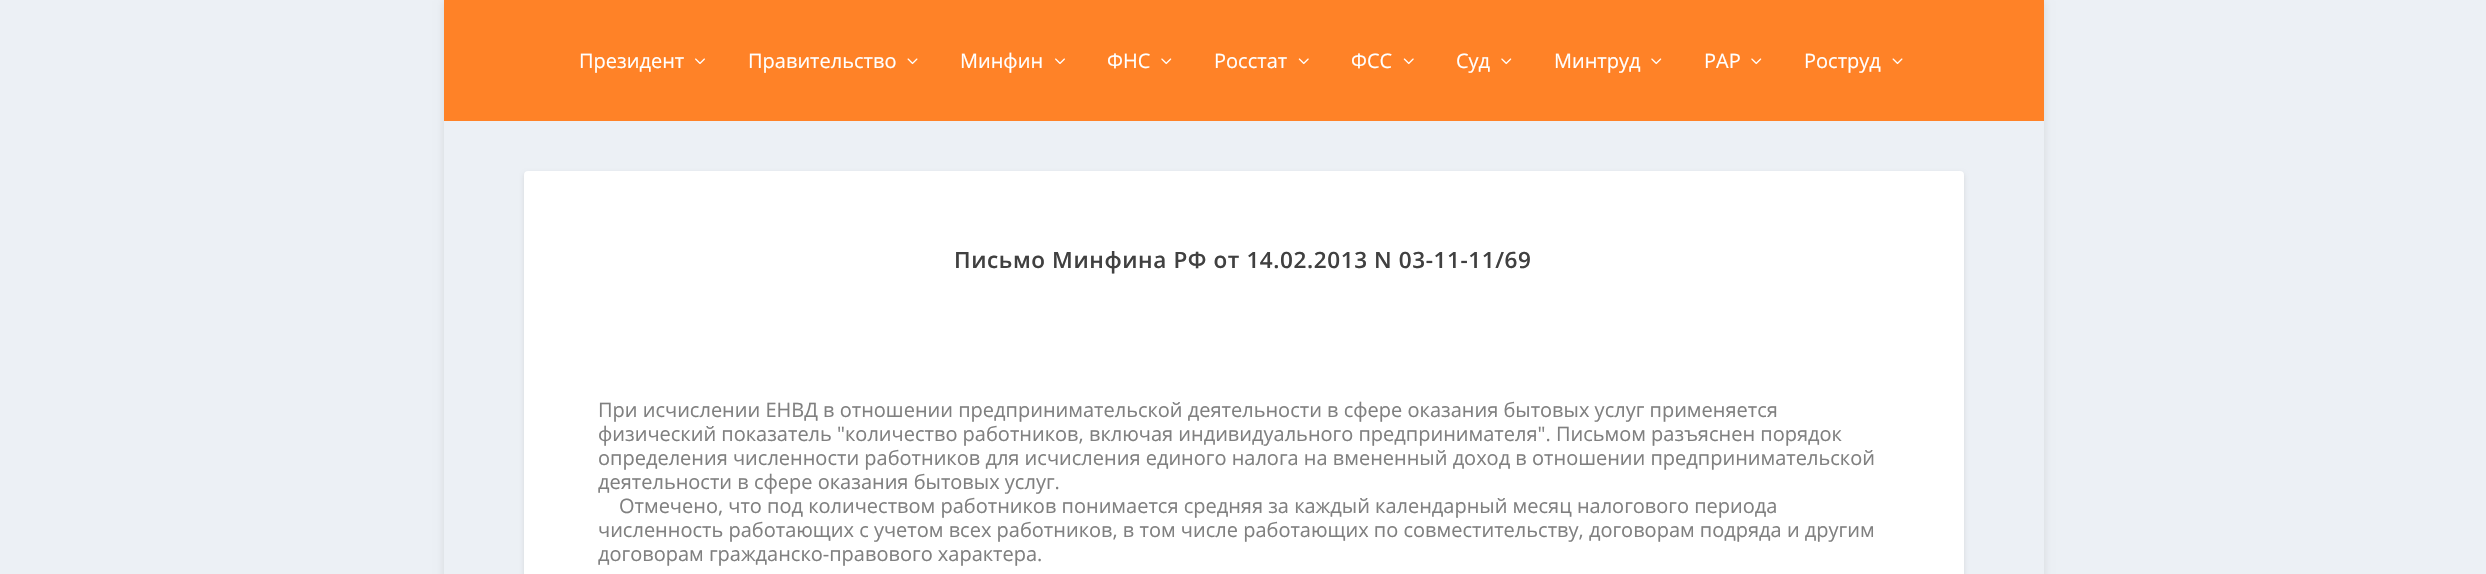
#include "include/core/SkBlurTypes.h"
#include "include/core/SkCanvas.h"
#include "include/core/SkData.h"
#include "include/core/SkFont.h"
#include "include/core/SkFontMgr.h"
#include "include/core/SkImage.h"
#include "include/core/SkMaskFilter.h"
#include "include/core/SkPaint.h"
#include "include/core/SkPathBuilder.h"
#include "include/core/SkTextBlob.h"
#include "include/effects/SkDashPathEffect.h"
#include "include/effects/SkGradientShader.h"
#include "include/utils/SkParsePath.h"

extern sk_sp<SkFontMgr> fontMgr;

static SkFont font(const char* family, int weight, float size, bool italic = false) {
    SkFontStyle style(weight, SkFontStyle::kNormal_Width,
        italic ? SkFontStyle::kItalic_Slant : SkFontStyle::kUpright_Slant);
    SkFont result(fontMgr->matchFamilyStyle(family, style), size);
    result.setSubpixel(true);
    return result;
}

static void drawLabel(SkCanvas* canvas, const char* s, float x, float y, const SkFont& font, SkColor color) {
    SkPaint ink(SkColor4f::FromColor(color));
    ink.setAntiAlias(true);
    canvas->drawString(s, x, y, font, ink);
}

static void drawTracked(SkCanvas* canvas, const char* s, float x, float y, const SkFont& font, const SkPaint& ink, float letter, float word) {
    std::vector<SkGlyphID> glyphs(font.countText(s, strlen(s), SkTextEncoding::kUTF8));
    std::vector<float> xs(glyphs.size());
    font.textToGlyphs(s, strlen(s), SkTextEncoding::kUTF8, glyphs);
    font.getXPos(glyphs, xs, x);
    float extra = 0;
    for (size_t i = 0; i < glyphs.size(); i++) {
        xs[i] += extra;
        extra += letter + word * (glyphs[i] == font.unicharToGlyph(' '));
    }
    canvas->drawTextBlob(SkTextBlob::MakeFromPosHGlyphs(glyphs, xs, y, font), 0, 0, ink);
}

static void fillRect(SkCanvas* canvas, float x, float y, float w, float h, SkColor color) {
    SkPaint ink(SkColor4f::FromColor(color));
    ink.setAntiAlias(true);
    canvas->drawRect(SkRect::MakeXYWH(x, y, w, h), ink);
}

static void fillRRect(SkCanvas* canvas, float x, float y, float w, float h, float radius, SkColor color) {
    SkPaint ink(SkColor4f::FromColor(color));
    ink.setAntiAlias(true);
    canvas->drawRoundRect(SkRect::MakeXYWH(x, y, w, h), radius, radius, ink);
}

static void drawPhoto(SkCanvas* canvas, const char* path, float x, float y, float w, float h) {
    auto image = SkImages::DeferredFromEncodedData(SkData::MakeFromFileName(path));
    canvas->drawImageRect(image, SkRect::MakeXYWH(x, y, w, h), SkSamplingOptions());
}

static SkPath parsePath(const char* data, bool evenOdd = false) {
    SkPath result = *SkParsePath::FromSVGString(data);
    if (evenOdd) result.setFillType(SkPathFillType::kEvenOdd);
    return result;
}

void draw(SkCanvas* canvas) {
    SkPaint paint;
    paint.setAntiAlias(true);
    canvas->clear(0xFFECF0F5);
    canvas->save();
    canvas->clipPath(parsePath("M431 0H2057V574H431ZM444 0H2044V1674H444Z", true), true);
    paint.setColor(0x1A000000);
    paint.setMaskFilter(SkMaskFilter::MakeBlur(kNormal_SkBlurStyle, 4));
    canvas->drawRect(SkRect::MakeXYWH(444, 1, 1600, 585), paint);
    paint.setMaskFilter(nullptr);
    canvas->restore();
    fillRect(canvas, 444, 0, 1600, 121, 0xFFFF8227);
    SkFont font1 = font("Open Sans", 400, 20);
    drawLabel(canvas, "Президент", 579, 68, font1, 0xFFFFFFFF);
    drawPhoto(canvas, "assets/img1.png", 695, 58, 10, 6);
    drawLabel(canvas, "Правительство", 748, 68, font1, 0xFFFFFFFF);
    drawPhoto(canvas, "assets/img2.png", 907, 58, 11, 7);
    drawLabel(canvas, "Минфин", 960, 68, font1, 0xFFFFFFFF);
    drawPhoto(canvas, "assets/img1.png", 1055, 58, 10, 6);
    drawLabel(canvas, "ФНС", 1107, 68, font1, 0xFFFFFFFF);
    drawPhoto(canvas, "assets/img3.png", 1161, 58, 11, 7);
    drawLabel(canvas, "Росстат", 1214, 68, font1, 0xFFFFFFFF);
    drawPhoto(canvas, "assets/img4.png", 1298, 58, 11, 7);
    drawLabel(canvas, "ФСС", 1351, 68, font1, 0xFFFFFFFF);
    drawPhoto(canvas, "assets/img4.png", 1403, 58, 11, 7);
    drawLabel(canvas, "Суд", 1456, 68, font1, 0xFFFFFFFF);
    drawPhoto(canvas, "assets/img3.png", 1501, 58, 11, 7);
    drawLabel(canvas, "Минтруд", 1554, 68, font1, 0xFFFFFFFF);
    drawPhoto(canvas, "assets/img3.png", 1651, 58, 11, 7);
    drawLabel(canvas, "РАР", 1704, 68, font1, 0xFFFFFFFF);
    drawPhoto(canvas, "assets/img3.png", 1751, 58, 11, 7);
    drawLabel(canvas, "Роструд", 1804, 68, font1, 0xFFFFFFFF);
    drawPhoto(canvas, "assets/img2.png", 1892, 58, 11, 7);
    paint.setMaskFilter(SkMaskFilter::MakeBlur(kNormal_SkBlurStyle, 2));
    canvas->drawRoundRect(SkRect::MakeXYWH(524, 173, 1440, 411), 4, 4, paint);
    paint.setMaskFilter(nullptr);
    fillRRect(canvas, 524, 171, 1440, 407, 4, 0xFFFFFFFF);
    SkFont font2 = font("Open Sans", 600, 22.5f);
    paint.setColor(0xFF404040);
    drawTracked(canvas, "Письмо Минфина РФ от 14.02.2013 N 03-11-11/69", 954, 268, font2, paint, 0.6f, 0);
    drawLabel(canvas, "При исчислении ЕНВД в отношении предпринимательской деятельности в сфере оказания бытовых услуг применяется", 598, 417, font1, 0xFF808080);
    drawLabel(canvas, "физический показатель \"количество работников, включая индивидуального предпринимателя\". Письмом разъяснен порядок", 598, 441, font1, 0xFF808080);
    drawLabel(canvas, "определения численности работников для исчисления единого налога на вмененный доход в отношении предпринимательской", 598, 465, font1, 0xFF808080);
    drawLabel(canvas, "деятельности в сфере оказания бытовых услуг.", 598, 489, font1, 0xFF808080);
    drawLabel(canvas, "Отмечено, что под количеством работников понимается средняя за каждый календарный месяц налогового периода", 619, 513, font1, 0xFF808080);
    drawLabel(canvas, "численность работающих с учетом всех работников, в том числе работающих по совместительству, договорам подряда и другим", 598, 537, font1, 0xFF808080);
    drawLabel(canvas, "договорам гражданско-правового характера.", 598, 561, font1, 0xFF808080);
}
